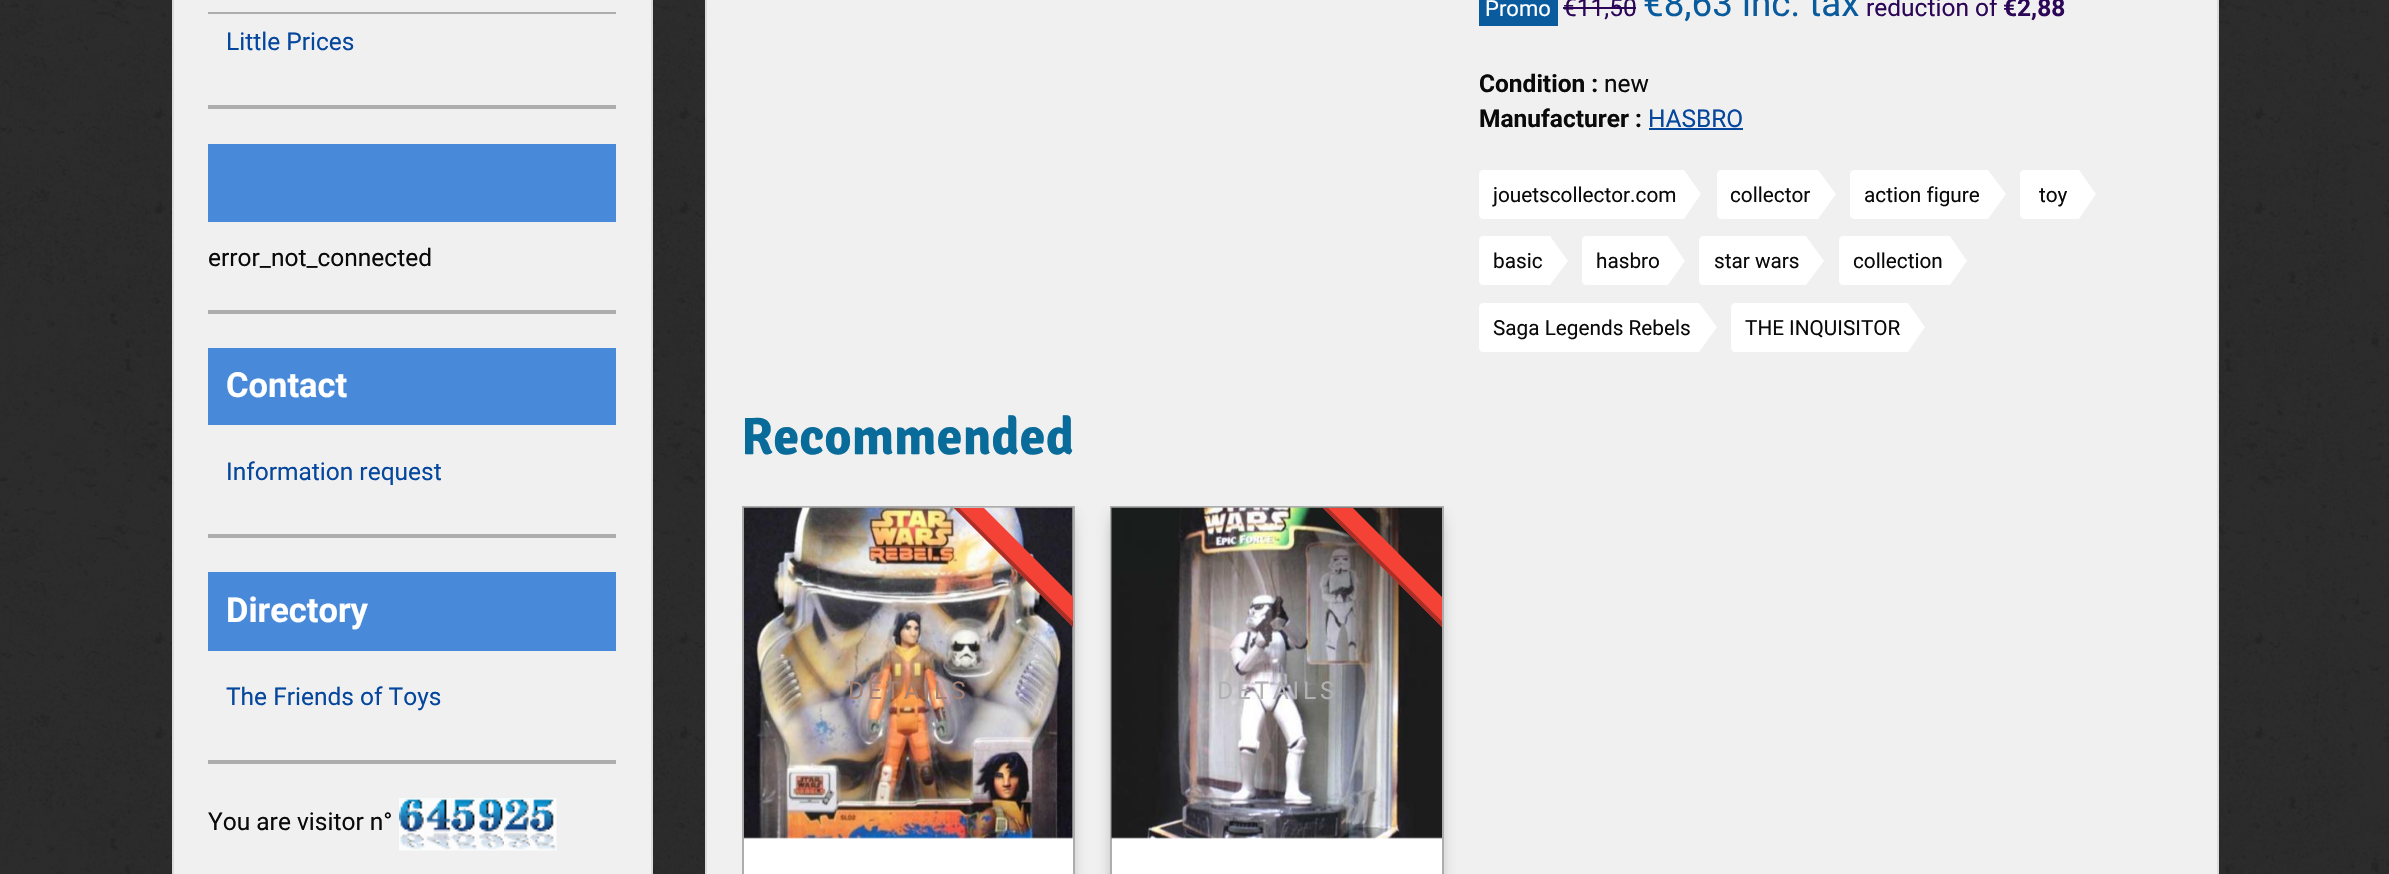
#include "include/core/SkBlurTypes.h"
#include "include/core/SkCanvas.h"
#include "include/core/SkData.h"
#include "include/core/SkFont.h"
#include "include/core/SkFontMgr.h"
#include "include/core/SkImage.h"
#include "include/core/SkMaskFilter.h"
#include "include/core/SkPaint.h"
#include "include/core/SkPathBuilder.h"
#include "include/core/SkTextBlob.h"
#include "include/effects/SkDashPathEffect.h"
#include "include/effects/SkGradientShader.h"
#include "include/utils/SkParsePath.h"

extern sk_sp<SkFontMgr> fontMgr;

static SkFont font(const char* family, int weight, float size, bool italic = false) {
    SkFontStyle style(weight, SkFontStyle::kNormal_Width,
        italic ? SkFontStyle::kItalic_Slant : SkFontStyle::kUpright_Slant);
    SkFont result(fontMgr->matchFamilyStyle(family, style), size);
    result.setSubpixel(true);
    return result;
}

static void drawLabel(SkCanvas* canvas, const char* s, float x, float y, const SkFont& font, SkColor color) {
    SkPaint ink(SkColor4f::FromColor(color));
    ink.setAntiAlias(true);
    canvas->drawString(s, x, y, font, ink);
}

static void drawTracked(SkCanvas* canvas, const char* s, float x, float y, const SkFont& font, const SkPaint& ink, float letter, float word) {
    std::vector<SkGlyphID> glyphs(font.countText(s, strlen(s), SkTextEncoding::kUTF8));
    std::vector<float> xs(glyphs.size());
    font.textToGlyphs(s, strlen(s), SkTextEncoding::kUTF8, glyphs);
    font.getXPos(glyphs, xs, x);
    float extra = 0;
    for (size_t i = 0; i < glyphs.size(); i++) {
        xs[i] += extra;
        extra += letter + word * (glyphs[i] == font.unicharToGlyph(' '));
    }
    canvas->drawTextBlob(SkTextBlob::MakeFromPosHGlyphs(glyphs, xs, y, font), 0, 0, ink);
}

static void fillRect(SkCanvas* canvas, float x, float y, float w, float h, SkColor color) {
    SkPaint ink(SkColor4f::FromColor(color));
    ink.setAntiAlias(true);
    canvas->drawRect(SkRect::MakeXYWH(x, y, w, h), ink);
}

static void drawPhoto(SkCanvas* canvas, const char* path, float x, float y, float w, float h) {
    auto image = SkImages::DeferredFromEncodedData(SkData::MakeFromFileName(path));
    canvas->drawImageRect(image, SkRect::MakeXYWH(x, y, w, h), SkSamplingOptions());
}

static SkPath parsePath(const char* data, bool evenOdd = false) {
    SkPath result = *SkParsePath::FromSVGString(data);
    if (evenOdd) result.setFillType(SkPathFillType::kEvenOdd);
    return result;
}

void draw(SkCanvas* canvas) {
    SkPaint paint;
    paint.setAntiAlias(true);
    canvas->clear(0xFF2D2C2C);
    drawPhoto(canvas, "assets/img1.png", 0, 0, 2389, 874);
    paint.setColor(0xFFF0F0F0);
    canvas->drawRect(SkRect::MakeXYWH(173, -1, 479, 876), paint);
    paint.setStroke(true);
    paint.setStrokeWidth(2);
    paint.setColor(0xFFDDDADA);
    canvas->drawRect(SkRect::MakeXYWH(173, -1, 479, 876), paint);
    fillRect(canvas, 208, 105, 408, 4, 0xFFADADAD);
    fillRect(canvas, 208, 12, 408, 2, 0xFFADADAD);
    SkFont font1 = font("Roboto", 400, 24.5f);
    drawLabel(canvas, "Little Prices", 226, 50, font1, 0xFF06479E);
    fillRect(canvas, 208, 310, 408, 4, 0xFFADADAD);
    fillRect(canvas, 208, 144, 408, 78, 0xFF488AD9);
    drawLabel(canvas, "error_not_connected", 208, 266, font1, 0xFF0A0A0A);
    fillRect(canvas, 208, 534, 408, 4, 0xFFADADAD);
    fillRect(canvas, 208, 348, 408, 77, 0xFF488AD9);
    SkFont font2 = font("Roboto", 700, 34.5f);
    drawLabel(canvas, "Contact", 226, 397, font2, 0xFFFFFFFF);
    drawLabel(canvas, "Information request", 226, 480, font1, 0xFF06479E);
    fillRect(canvas, 208, 760, 408, 4, 0xFFADADAD);
    fillRect(canvas, 208, 572, 408, 79, 0xFF488AD9);
    drawLabel(canvas, "Directory", 226, 622, font2, 0xFFFFFFFF);
    drawLabel(canvas, "The Friends of Toys", 226, 705, font1, 0xFF06479E);
    drawLabel(canvas, "You are visitor n°", 208, 830, font1, 0xFF0A0A0A);
    drawPhoto(canvas, "assets/img2.png", 399, 798, 26, 53);
    drawPhoto(canvas, "assets/img3.png", 425, 798, 27, 53);
    drawPhoto(canvas, "assets/img4.png", 451, 798, 27, 53);
    drawPhoto(canvas, "assets/img5.png", 478, 798, 26, 53);
    drawPhoto(canvas, "assets/img6.png", 504, 798, 27, 53);
    drawPhoto(canvas, "assets/img7.png", 530, 798, 27, 53);
    paint.setStroke(false);
    paint.setColor(0xFFF0F0F0);
    canvas->drawRect(SkRect::MakeXYWH(706, -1, 1512, 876), paint);
    paint.setStroke(true);
    paint.setColor(0xFFDDDADA);
    canvas->drawRect(SkRect::MakeXYWH(706, -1, 1512, 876), paint);
    fillRect(canvas, 1479, 0, 79, 26, 0xFF095B9E);
    SkFont font3 = font("Roboto", 400, 22);
    drawLabel(canvas, "Promo", 1485, 16, font3, 0xFFFFFFFF);
    drawLabel(canvas, "€11,50", 1563, 16, font1, 0xFF2D0757);
    fillRect(canvas, 1563, 7, 73, 2, 0xFA290254);
    SkFont font4 = font("Roboto", 400, 36.75f);
    drawLabel(canvas, "€8,63 inc. tax", 1643, 16, font4, 0xFF095B9E);
    drawLabel(canvas, "reduction of", 1866, 16, font1, 0xFF2D0757);
    SkFont font5 = font("Roboto", 700, 24.5f);
    drawLabel(canvas, "€2,88", 2003, 16, font5, 0xFF2D0757);
    drawLabel(canvas, "Condition :", 1479, 92, font5, 0xFF0A0A0A);
    drawLabel(canvas, "new", 1604, 92, font1, 0xFF0A0A0A);
    drawLabel(canvas, "Manufacturer :", 1479, 127, font5, 0xFF0A0A0A);
    drawLabel(canvas, "HASBRO", 1648, 127, font1, 0xFF06479E);
    fillRect(canvas, 1649, 128, 94, 2, 0xFF06479E);
    paint.setStroke(false);
    paint.setColor(0xFFFFFFFF);
    canvas->drawPath(parsePath("M1483 170H1684V219H1483C1481 219 1479 217 1479 215V174C1479 172 1481 170 1483 170Z"), paint);
    SkFont font6 = font("Roboto", 400, 20.75f);
    drawLabel(canvas, "jouetscollector.com", 1493, 202, font6, 0xFF0A0A0A);
    canvas->drawPath(parsePath("M1684 219V170L1701 194Z"), paint);
    canvas->drawPath(parsePath("M1721 170H1818V219H1721C1719 219 1717 217 1717 215V174C1717 172 1719 170 1721 170Z"), paint);
    drawLabel(canvas, "collector", 1730, 202, font6, 0xFF0A0A0A);
    canvas->drawPath(parsePath("M1818 219V170L1836 194Z"), paint);
    canvas->drawPath(parsePath("M1854 170H1988V219H1854C1852 219 1850 217 1850 215V174C1850 172 1852 170 1854 170Z"), paint);
    drawLabel(canvas, "action figure", 1864, 202, font6, 0xFF0A0A0A);
    canvas->drawPath(parsePath("M1988 219V170L2006 194Z"), paint);
    canvas->drawPath(parsePath("M2024 170H2079V219H2024C2022 219 2020 217 2020 215V174C2020 172 2022 170 2024 170Z"), paint);
    drawLabel(canvas, "toy", 2039, 202, font6, 0xFF0A0A0A);
    canvas->drawPath(parsePath("M2079 219V170L2096 194Z"), paint);
    canvas->drawPath(parsePath("M1483 236H1551V285H1483C1481 285 1479 283 1479 281V240C1479 238 1481 236 1483 236Z"), paint);
    drawLabel(canvas, "basic", 1493, 268, font6, 0xFF0A0A0A);
    canvas->drawPath(parsePath("M1550 285V236L1568 261Z"), paint);
    canvas->drawPath(parsePath("M1586 236H1668V285H1586C1584 285 1582 283 1582 281V240C1582 238 1584 236 1586 236Z"), paint);
    drawLabel(canvas, "hasbro", 1596, 268, font6, 0xFF0A0A0A);
    canvas->drawPath(parsePath("M1668 285V236L1685 261Z"), paint);
    canvas->drawPath(parsePath("M1703 236H1806V285H1703C1701 285 1699 283 1699 281V240C1699 238 1701 236 1703 236Z"), paint);
    drawLabel(canvas, "star wars", 1714, 268, font6, 0xFF0A0A0A);
    canvas->drawPath(parsePath("M1806 285V236L1824 261Z"), paint);
    canvas->drawPath(parsePath("M1843 236H1950V285H1843C1841 285 1839 283 1839 281V240C1839 238 1841 236 1843 236Z"), paint);
    drawLabel(canvas, "collection", 1853, 268, font6, 0xFF0A0A0A);
    canvas->drawPath(parsePath("M1950 285V236L1967 261Z"), paint);
    canvas->drawPath(parsePath("M1483 303H1699V352H1483C1481 352 1479 350 1479 348V307C1479 305 1481 303 1483 303Z"), paint);
    drawLabel(canvas, "Saga Legends Rebels", 1493, 335, font6, 0xFF0A0A0A);
    canvas->drawPath(parsePath("M1699 352V303L1717 327Z"), paint);
    canvas->drawPath(parsePath("M1735 303H1908V352H1735C1733 352 1731 350 1731 348V307C1731 305 1733 303 1735 303Z"), paint);
    drawLabel(canvas, "THE INQUISITOR", 1745, 335, font6, 0xFF0A0A0A);
    canvas->drawPath(parsePath("M1908 352V303L1925 327Z"), paint);
    SkFont font7 = font("Signika", 700, 52.5f);
    drawLabel(canvas, "Recommended", 741, 454, font7, 0xFF086B99);
    canvas->save();
    canvas->clipRect(SkRect::MakeXYWH(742, 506, 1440, 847));
    paint.setColor(0xD4615D5D);
    paint.setMaskFilter(SkMaskFilter::MakeBlur(kNormal_SkBlurStyle, 9));
    canvas->drawRect(SkRect::MakeXYWH(751, 516, 315, 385), paint);
    paint.setMaskFilter(nullptr);
    canvas->restore();
    paint.setColor(0xFFFFFFFF);
    canvas->drawRect(SkRect::MakeXYWH(743, 507, 331, 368), paint);
    paint.setStroke(true);
    paint.setColor(0xFFADADAD);
    canvas->drawRect(SkRect::MakeXYWH(743, 507, 331, 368), paint);
    drawPhoto(canvas, "assets/img8.png", 743, 507, 330, 332);
    canvas->save();
    canvas->clipRect(SkRect::MakeXYWH(898, 508, 175, 175));
    paint.setStroke(false);
    paint.setColor(0xFFF44336);
    canvas->drawPath(parsePath("M935 459L1108 632L1093 647L920 474Z"), paint);
    paint.setColor(0xFFAB2F26);
    canvas->drawPath(parsePath("M922 471L1096 644L1093 647L920 474Z"), paint);
    canvas->restore();
    paint.setColor(0xFFA58273);
    drawTracked(canvas, "DETAILS", 848, 699, font1, paint, 3.75f, 0);
    canvas->save();
    canvas->clipRect(SkRect::MakeXYWH(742, 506, 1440, 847));
    paint.setColor(0xD4615D5D);
    paint.setMaskFilter(SkMaskFilter::MakeBlur(kNormal_SkBlurStyle, 9));
    canvas->drawRect(SkRect::MakeXYWH(1118, 516, 317, 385), paint);
    paint.setMaskFilter(nullptr);
    canvas->restore();
    fillRect(canvas, 1112, 837, 330, 37, 0xFFFFFFFF);
    paint.setStroke(true);
    paint.setColor(0xFFADADAD);
    canvas->drawRect(SkRect::MakeXYWH(1111, 507, 332, 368), paint);
    drawPhoto(canvas, "assets/img9.png", 1111, 507, 331, 332);
    canvas->save();
    canvas->clipRect(SkRect::MakeXYWH(1267, 508, 175, 175));
    paint.setStroke(false);
    paint.setColor(0xFFF44336);
    canvas->drawPath(parsePath("M1304 459L1477 632L1462 647L1289 474Z"), paint);
    paint.setColor(0xFFAB2F26);
    canvas->drawPath(parsePath("M1291 471L1465 644L1462 647L1289 474Z"), paint);
    canvas->restore();
    paint.setColor(0xFFB2B1B4);
    drawTracked(canvas, "DETAILS", 1217, 699, font1, paint, 3.75f, 0);
}
